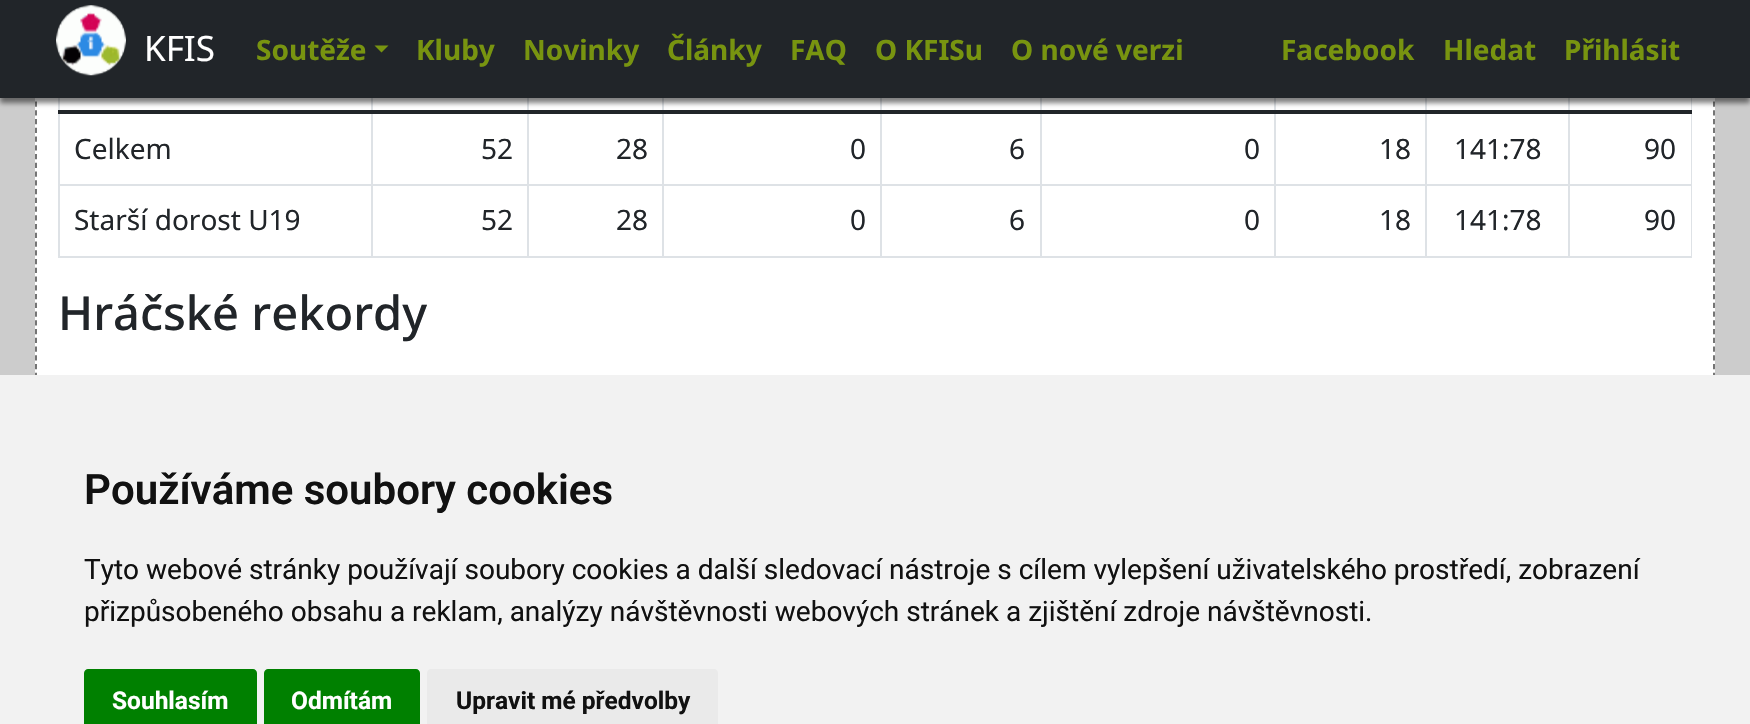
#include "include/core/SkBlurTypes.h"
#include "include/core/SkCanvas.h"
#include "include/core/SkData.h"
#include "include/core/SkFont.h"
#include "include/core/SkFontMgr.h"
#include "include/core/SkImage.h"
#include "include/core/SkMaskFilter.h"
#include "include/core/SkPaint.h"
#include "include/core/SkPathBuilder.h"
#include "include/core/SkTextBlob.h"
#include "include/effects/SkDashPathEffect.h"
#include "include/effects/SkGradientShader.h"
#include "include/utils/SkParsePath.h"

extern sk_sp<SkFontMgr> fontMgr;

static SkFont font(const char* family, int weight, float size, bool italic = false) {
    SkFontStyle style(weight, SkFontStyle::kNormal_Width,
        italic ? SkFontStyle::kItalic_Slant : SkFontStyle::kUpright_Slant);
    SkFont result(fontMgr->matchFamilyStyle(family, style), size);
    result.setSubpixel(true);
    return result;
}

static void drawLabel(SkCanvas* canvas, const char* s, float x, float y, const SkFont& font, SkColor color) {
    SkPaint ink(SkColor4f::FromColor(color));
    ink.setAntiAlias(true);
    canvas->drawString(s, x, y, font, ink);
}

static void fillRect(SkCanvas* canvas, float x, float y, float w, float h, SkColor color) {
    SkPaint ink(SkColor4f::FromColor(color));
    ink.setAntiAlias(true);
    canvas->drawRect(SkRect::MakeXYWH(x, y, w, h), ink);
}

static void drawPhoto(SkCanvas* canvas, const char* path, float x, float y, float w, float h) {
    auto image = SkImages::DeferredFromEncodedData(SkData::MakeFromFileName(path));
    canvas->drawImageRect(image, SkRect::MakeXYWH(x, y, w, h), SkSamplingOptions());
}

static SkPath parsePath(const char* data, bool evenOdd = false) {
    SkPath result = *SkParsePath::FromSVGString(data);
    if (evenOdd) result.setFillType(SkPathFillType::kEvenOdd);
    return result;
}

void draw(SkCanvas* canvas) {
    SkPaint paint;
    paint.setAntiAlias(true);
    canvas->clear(0xFFCCCCCC);
    fillRect(canvas, 35, 98, 1680, 277, 0xFFFFFFFF);
    paint.setStroke(true);
    paint.setStrokeWidth(1.8f);
    paint.setColor(0xFF666666);
    paint.setPathEffect(SkDashPathEffect::Make({{5.25f, 3.5f}}, 0));
    canvas->drawPath(parsePath("M1714-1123.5V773.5"), paint);
    paint.setPathEffect(nullptr);
    paint.setPathEffect(SkDashPathEffect::Make({{5.25f, 3.5f}}, 0));
    canvas->drawPath(parsePath("M36-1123.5V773.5"), paint);
    paint.setPathEffect(nullptr);
    fillRect(canvas, 58, 184, 1634, 2, 0xFFDEE2E6);
    fillRect(canvas, 58, 256, 1634, 2, 0xFFDEE2E6);
    fillRect(canvas, 58, 98, 2, 159, 0xFFDEE2E6);
    fillRect(canvas, 371, 98, 2, 159, 0xFFDEE2E6);
    fillRect(canvas, 527, 98, 2, 159, 0xFFDEE2E6);
    fillRect(canvas, 662, 98, 2, 159, 0xFFDEE2E6);
    fillRect(canvas, 880, 98, 2, 159, 0xFFDEE2E6);
    fillRect(canvas, 1040, 98, 2, 159, 0xFFDEE2E6);
    fillRect(canvas, 1274, 98, 2, 159, 0xFFDEE2E6);
    fillRect(canvas, 1425, 98, 2, 159, 0xFFDEE2E6);
    fillRect(canvas, 1691, 98, 1, 159, 0xFFDEE2E6);
    fillRect(canvas, 1568, 98, 2, 159, 0xFFDEE2E6);
    fillRect(canvas, 58, 110, 1634, 4, 0xFF212529);
    paint.setStroke(false);
    paint.setColor(0x80000000);
    paint.setMaskFilter(SkMaskFilter::MakeBlur(kNormal_SkBlurStyle, 2.5f));
    canvas->drawRect(SkRect::MakeXYWH(0, 5, 1750, 98), paint);
    paint.setMaskFilter(nullptr);
    fillRect(canvas, 0, 0, 1750, 98, 0xFF212529);
    drawPhoto(canvas, "assets/img1.png", 56, 5, 70, 71);
    SkFont font1 = font("Noto Sans", 400, 35);
    drawLabel(canvas, "KFIS", 144, 61, font1, 0xFFFFFFFF);
    SkFont font2 = font("Noto Sans", 700, 28);
    drawLabel(canvas, "Soutěže", 256, 60, font2, 0xFF789410);
    paint.setColor(0xFF789410);
    canvas->drawPath(parsePath("M374.5 45.5H388.5L381.5 52.5Z"), paint);
    drawLabel(canvas, "Kluby", 416, 60, font2, 0xFF789410);
    drawLabel(canvas, "Novinky", 523, 60, font2, 0xFF789410);
    drawLabel(canvas, "Články", 667, 60, font2, 0xFF789410);
    drawLabel(canvas, "FAQ", 790, 60, font2, 0xFF789410);
    drawLabel(canvas, "O KFISu", 875, 60, font2, 0xFF789410);
    drawLabel(canvas, "O nové verzi", 1011, 60, font2, 0xFF789410);
    drawLabel(canvas, "Facebook", 1281, 60, font2, 0xFF789410);
    drawLabel(canvas, "Hledat", 1443, 60, font2, 0xFF789410);
    drawLabel(canvas, "Přihlásit", 1564, 60, font2, 0xFF789410);
    SkFont font3 = font("Noto Sans", 400, 28);
    drawLabel(canvas, "Celkem", 74, 159, font3, 0xFF212529);
    drawLabel(canvas, "52", 481, 159, font3, 0xFF212529);
    drawLabel(canvas, "28", 616, 159, font3, 0xFF212529);
    drawLabel(canvas, "0", 850, 159, font3, 0xFF212529);
    drawLabel(canvas, "6", 1009, 159, font3, 0xFF212529);
    drawLabel(canvas, "0", 1244, 159, font3, 0xFF212529);
    drawLabel(canvas, "18", 1379, 159, font3, 0xFF212529);
    drawLabel(canvas, "141:78", 1454, 159, font3, 0xFF212529);
    drawLabel(canvas, "90", 1644, 159, font3, 0xFF212529);
    drawLabel(canvas, "Starší dorost U19", 74, 230, font3, 0xFF212529);
    drawLabel(canvas, "52", 481, 230, font3, 0xFF212529);
    drawLabel(canvas, "28", 616, 230, font3, 0xFF212529);
    drawLabel(canvas, "0", 850, 230, font3, 0xFF212529);
    drawLabel(canvas, "6", 1009, 230, font3, 0xFF212529);
    drawLabel(canvas, "0", 1244, 230, font3, 0xFF212529);
    drawLabel(canvas, "18", 1379, 230, font3, 0xFF212529);
    drawLabel(canvas, "141:78", 1454, 230, font3, 0xFF212529);
    drawLabel(canvas, "90", 1644, 230, font3, 0xFF212529);
    SkFont font4 = font("Noto Sans", 500, 47);
    drawLabel(canvas, "Hráčské rekordy", 58, 330, font4, 0xFF212529);
    fillRect(canvas, 0, 375, 1750, 349, 0xFFF2F2F2);
    SkFont font5 = font("Roboto", 600, 42);
    drawLabel(canvas, "Používáme soubory cookies", 84, 504, font5, 0xFF111111);
    SkFont font6 = font("Roboto", 400, 28);
    drawLabel(canvas, "Tyto webové stránky používají soubory cookies a další sledovací nástroje s cílem vylepšení uživatelského prostředí, zobrazení", 84, 579, font6, 0xFF111111);
    drawLabel(canvas, "přizpůsobeného obsahu a reklam, analýzy návštěvnosti webových stránek a zjištění zdroje návštěvnosti.", 84, 621, font6, 0xFF111111);
    paint.setColor(0xFF008000);
    canvas->drawPath(parsePath("M88 669H253C255 669 257 671 257 673V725H84V673C84 671 86 669 88 669Z"), paint);
    SkFont font7 = font("Roboto", 700, 24.5f);
    drawLabel(canvas, "Souhlasím", 112, 709, font7, 0xFFFFFFFF);
    canvas->drawPath(parsePath("M268 669H416C418 669 420 671 420 673V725H264V673C264 671 266 669 268 669Z"), paint);
    drawLabel(canvas, "Odmítám", 291, 709, font7, 0xFFFFFFFF);
    paint.setColor(0xFFEAEAEA);
    canvas->drawPath(parsePath("M431 669H714C716 669 718 671 718 673V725H427V673C427 671 429 669 431 669Z"), paint);
    drawLabel(canvas, "Upravit mé předvolby", 456, 709, font7, 0xFF111111);
}
